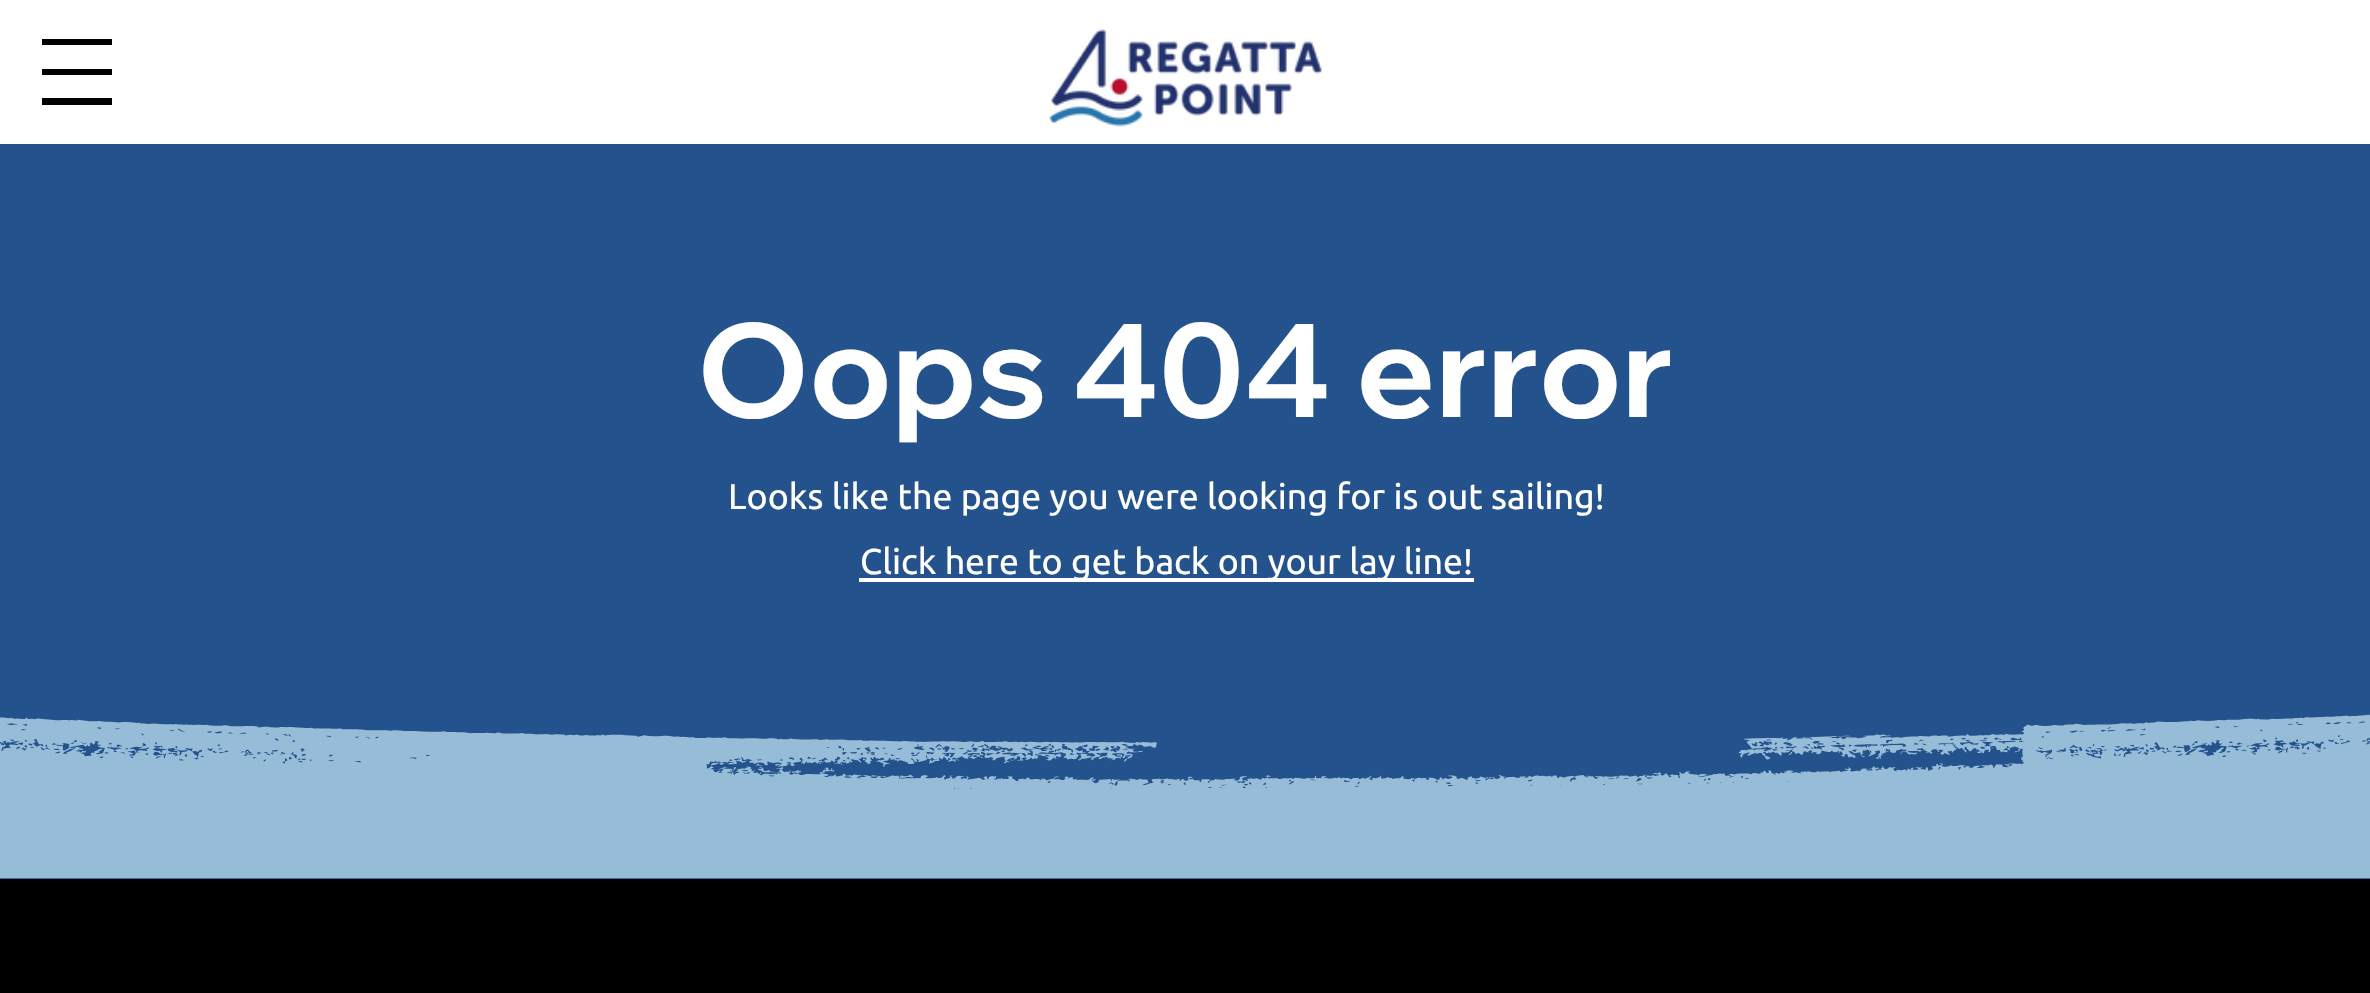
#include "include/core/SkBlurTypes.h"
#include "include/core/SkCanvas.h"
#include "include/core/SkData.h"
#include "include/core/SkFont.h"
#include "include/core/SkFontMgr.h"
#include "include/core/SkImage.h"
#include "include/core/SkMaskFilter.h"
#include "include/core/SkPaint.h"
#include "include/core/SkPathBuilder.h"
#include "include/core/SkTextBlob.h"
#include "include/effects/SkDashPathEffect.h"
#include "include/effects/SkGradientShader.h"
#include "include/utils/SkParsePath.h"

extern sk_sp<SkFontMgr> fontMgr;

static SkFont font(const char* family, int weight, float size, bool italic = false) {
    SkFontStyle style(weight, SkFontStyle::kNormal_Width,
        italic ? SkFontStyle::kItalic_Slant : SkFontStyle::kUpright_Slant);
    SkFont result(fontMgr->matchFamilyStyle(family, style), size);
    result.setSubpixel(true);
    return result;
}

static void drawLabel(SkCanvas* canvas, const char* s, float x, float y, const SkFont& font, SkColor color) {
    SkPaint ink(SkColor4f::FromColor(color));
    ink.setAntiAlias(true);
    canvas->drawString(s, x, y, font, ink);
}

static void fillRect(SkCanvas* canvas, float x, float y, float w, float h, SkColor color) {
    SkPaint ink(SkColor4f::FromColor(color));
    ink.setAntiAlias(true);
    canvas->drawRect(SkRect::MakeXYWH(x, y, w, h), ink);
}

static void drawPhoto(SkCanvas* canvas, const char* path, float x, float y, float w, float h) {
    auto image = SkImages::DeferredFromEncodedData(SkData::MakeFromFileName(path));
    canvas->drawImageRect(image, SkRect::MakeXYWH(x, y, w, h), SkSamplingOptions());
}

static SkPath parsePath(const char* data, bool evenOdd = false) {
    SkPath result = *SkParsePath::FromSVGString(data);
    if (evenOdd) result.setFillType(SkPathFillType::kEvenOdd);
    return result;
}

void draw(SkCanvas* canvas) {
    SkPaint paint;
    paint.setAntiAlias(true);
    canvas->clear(0xFFFFFFFF);
    canvas->save();
    canvas->clipRect(SkRect::MakeXYWH(42, 28, 70, 88));
    paint.setColor(0xFF000000);
    canvas->drawPath(parsePath("M119 45H32V39H119ZM119 75H32V69H119ZM119 105H32V98H119Z", true), paint);
    canvas->restore();
    drawPhoto(canvas, "assets/img1.png", 1049, 29, 273, 98);
    fillRect(canvas, 0, 144, 2370, 735, 0xFF24528D);
    SkFont font1 = font("Wix Madefor Display", 700, 130);
    drawLabel(canvas, "Oops 404 error", 697, 417, font1, 0xFFFFFFFF);
    SkFont font2 = font("Ubuntu", 400, 35.8f);
    drawLabel(canvas, "Looks like the page you were looking for is out sailing!", 728, 509, font2, 0xFFFFFFFF);
    fillRect(canvas, 859, 578, 615, 4, 0xFFFFFFFF);
    drawLabel(canvas, "Click here to get back on your lay line!", 860, 574, font2, 0xFFFFFFFF);
    drawPhoto(canvas, "assets/img2.png", 0, 714, 2370, 165);
    fillRect(canvas, 0, 879, 2370, 114, 0xFF000000);
}
